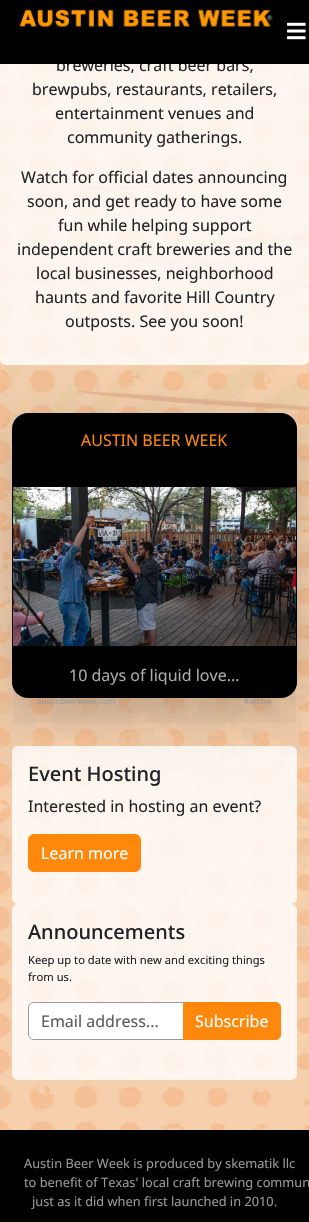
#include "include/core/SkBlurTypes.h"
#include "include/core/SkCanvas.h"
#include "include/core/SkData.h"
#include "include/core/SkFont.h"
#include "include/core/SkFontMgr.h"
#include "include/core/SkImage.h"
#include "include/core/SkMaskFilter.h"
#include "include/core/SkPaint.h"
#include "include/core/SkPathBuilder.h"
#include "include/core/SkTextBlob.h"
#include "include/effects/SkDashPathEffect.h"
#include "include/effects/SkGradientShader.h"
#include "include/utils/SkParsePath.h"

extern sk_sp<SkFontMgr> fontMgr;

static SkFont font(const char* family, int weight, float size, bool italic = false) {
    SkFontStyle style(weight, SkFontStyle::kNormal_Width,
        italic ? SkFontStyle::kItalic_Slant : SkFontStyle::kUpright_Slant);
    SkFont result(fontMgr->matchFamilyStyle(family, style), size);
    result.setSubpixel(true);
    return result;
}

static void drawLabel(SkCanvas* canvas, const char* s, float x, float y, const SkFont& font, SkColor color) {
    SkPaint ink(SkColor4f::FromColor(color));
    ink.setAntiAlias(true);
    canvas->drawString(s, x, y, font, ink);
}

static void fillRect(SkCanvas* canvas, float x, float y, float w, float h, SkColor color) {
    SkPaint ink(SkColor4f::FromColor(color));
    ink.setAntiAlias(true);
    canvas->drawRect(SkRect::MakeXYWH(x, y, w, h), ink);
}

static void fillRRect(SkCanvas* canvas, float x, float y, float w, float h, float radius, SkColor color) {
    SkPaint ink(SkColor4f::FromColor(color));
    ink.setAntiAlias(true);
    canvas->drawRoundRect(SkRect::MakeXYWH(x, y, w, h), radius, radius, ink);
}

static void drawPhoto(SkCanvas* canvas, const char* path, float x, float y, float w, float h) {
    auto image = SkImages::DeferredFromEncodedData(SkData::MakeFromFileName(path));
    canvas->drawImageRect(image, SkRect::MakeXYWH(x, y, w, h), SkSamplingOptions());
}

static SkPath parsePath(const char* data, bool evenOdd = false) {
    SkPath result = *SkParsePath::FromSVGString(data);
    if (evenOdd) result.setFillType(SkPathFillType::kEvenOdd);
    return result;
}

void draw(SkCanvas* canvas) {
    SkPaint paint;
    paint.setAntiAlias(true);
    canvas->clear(0xFFFFFFFF);
    drawPhoto(canvas, "assets/img1.png", 0, 64, 309, 1066);
    fillRRect(canvas, 0, -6, 309, 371, 6, 0xCCFFFFFF);
    SkFont font1 = font("Noto Sans", 400, 16);
    drawLabel(canvas, "breweries, craft beer bars,", 56, 71, font1, 0xFF212529);
    fillRect(canvas, 0, 0, 309, 64, 0xFF000000);
    drawPhoto(canvas, "assets/img2.png", 19, 9, 254, 19);
    drawPhoto(canvas, "assets/img3.png", 287, 22, 19, 18);
    drawLabel(canvas, "brewpubs, restaurants, retailers,", 32, 95, font1, 0xFF212529);
    drawLabel(canvas, "entertainment venues and", 55, 119, font1, 0xFF212529);
    drawLabel(canvas, "community gatherings.", 67, 143, font1, 0xFF212529);
    drawLabel(canvas, "Watch for official dates announcing", 21, 183, font1, 0xFF212529);
    drawLabel(canvas, "soon, and get ready to have some", 27, 207, font1, 0xFF212529);
    drawLabel(canvas, "fun while helping support", 58, 231, font1, 0xFF212529);
    drawLabel(canvas, "independent craft breweries and the", 17, 255, font1, 0xFF212529);
    drawLabel(canvas, "local businesses, neighborhood", 36, 279, font1, 0xFF212529);
    drawLabel(canvas, "haunts and favorite Hill Country", 35, 303, font1, 0xFF212529);
    drawLabel(canvas, "outposts. See you soon!", 65, 327, font1, 0xFF212529);
    fillRRect(canvas, 12, 746, 285, 158, 6, 0xCCFFFFFF);
    paint.setColor(0x2E000000);
    paint.setMaskFilter(SkMaskFilter::MakeBlur(kNormal_SkBlurStyle, 24));
    canvas->drawRoundRect(SkRect::MakeXYWH(12, 429, 285, 285), 16, 16, paint);
    paint.setMaskFilter(nullptr);
    fillRRect(canvas, 12, 413, 285, 285, 16, 0xFF000000);
    paint.setStroke(true);
    paint.setStrokeWidth(1);
    canvas->drawRoundRect(SkRect::MakeXYWH(12.5f, 413.5f, 284, 284), 15.5f, 15.5f, paint);
    fillRect(canvas, 13, 414, 283, 8, 0x08212529);
    drawLabel(canvas, "AUSTIN BEER WEEK", 81, 446, font1, 0xFFFD880B);
    drawPhoto(canvas, "assets/img4.png", 13, 487, 283, 159);
    fillRect(canvas, 13, 689, 283, 34, 0x08212529);
    drawLabel(canvas, "10 days of liquid love...", 69, 681, font1, 0xFFAAAAAA);
    SkFont font2 = font("Noto Sans", 400, 8);
    drawLabel(canvas, "austinbeerweek.com", 37, 704, font2, 0xFF999999);
    drawLabel(canvas, "#atxbw", 244, 704, font2, 0xFF999999);
    SkFont font3 = font("Noto Sans", 500, 20);
    drawLabel(canvas, "Event Hosting", 28, 781, font3, 0xFF212529);
    drawLabel(canvas, "Interested in hosting an event?", 28, 812, font1, 0xFF212529);
    paint.setStroke(false);
    paint.setColor(0xFFFD880B);
    canvas->drawRoundRect(SkRect::MakeXYWH(28.5f, 834.5f, 112, 37), 5.5f, 5.5f, paint);
    paint.setStroke(true);
    canvas->drawRoundRect(SkRect::MakeXYWH(28.5f, 834.5f, 112, 37), 5.5f, 5.5f, paint);
    drawLabel(canvas, "Learn more", 41, 859, font1, 0xFFFFFFFF);
    fillRRect(canvas, 12, 904, 285, 176, 6, 0xCCFFFFFF);
    drawLabel(canvas, "Announcements", 28, 939, font3, 0xFF212529);
    SkFont font4 = font("Noto Sans", 400, 11.2f);
    drawLabel(canvas, "Keep up to date with new and exciting things", 28, 964, font4, 0xFF212529);
    drawLabel(canvas, "from us.", 28, 981, font4, 0xFF212529);
    paint.setStroke(false);
    paint.setColor(0xFFFFFFFF);
    canvas->drawPath(parsePath("M34 1003H184V1039H34C31 1039 29 1037 29 1034V1008C29 1005 31 1003 34 1003Z"), paint);
    paint.setColor(0xFF999999);
    canvas->drawPath(parsePath("M34 1002H184V1040H34C31 1040 28 1037 28 1034V1008C28 1005 31 1002 34 1002ZM34 1003H184V1039H34C31 1039 29 1037 29 1034V1008C29 1005 31 1003 34 1003Z", true), paint);
    drawLabel(canvas, "Email address...", 41, 1027, font1, 0xFF595C5F);
    paint.setColor(0xFFFD880B);
    canvas->drawPath(parsePath("M183 1002H275C278.5 1002 281 1004.5 281 1008V1034C281 1037.5 278.5 1040 275 1040H183Z"), paint);
    canvas->drawPath(parsePath("M183 1002H275C278 1002 281 1005 281 1008V1034C281 1037 278 1040 275 1040H183ZM183 1003H275C278 1003 280 1005 280 1008V1034C280 1037 278 1039 275 1039H183Z", true), paint);
    drawLabel(canvas, "Subscribe", 195, 1027, font1, 0xFFFFFFFF);
    fillRect(canvas, 0, 1130, 309, 92, 0xFF000000);
    SkFont font5 = font("Noto Sans", 400, 12.8f);
    drawLabel(canvas, "Austin Beer Week is produced by skematik llc", 24, 1168, font5, 0xFF999999);
    drawLabel(canvas, "to benefit of Texas' local craft brewing commun", 24, 1187, font5, 0xFF999999);
    drawLabel(canvas, "just as it did when first launched in 2010.", 32, 1206, font5, 0xFF999999);
}
